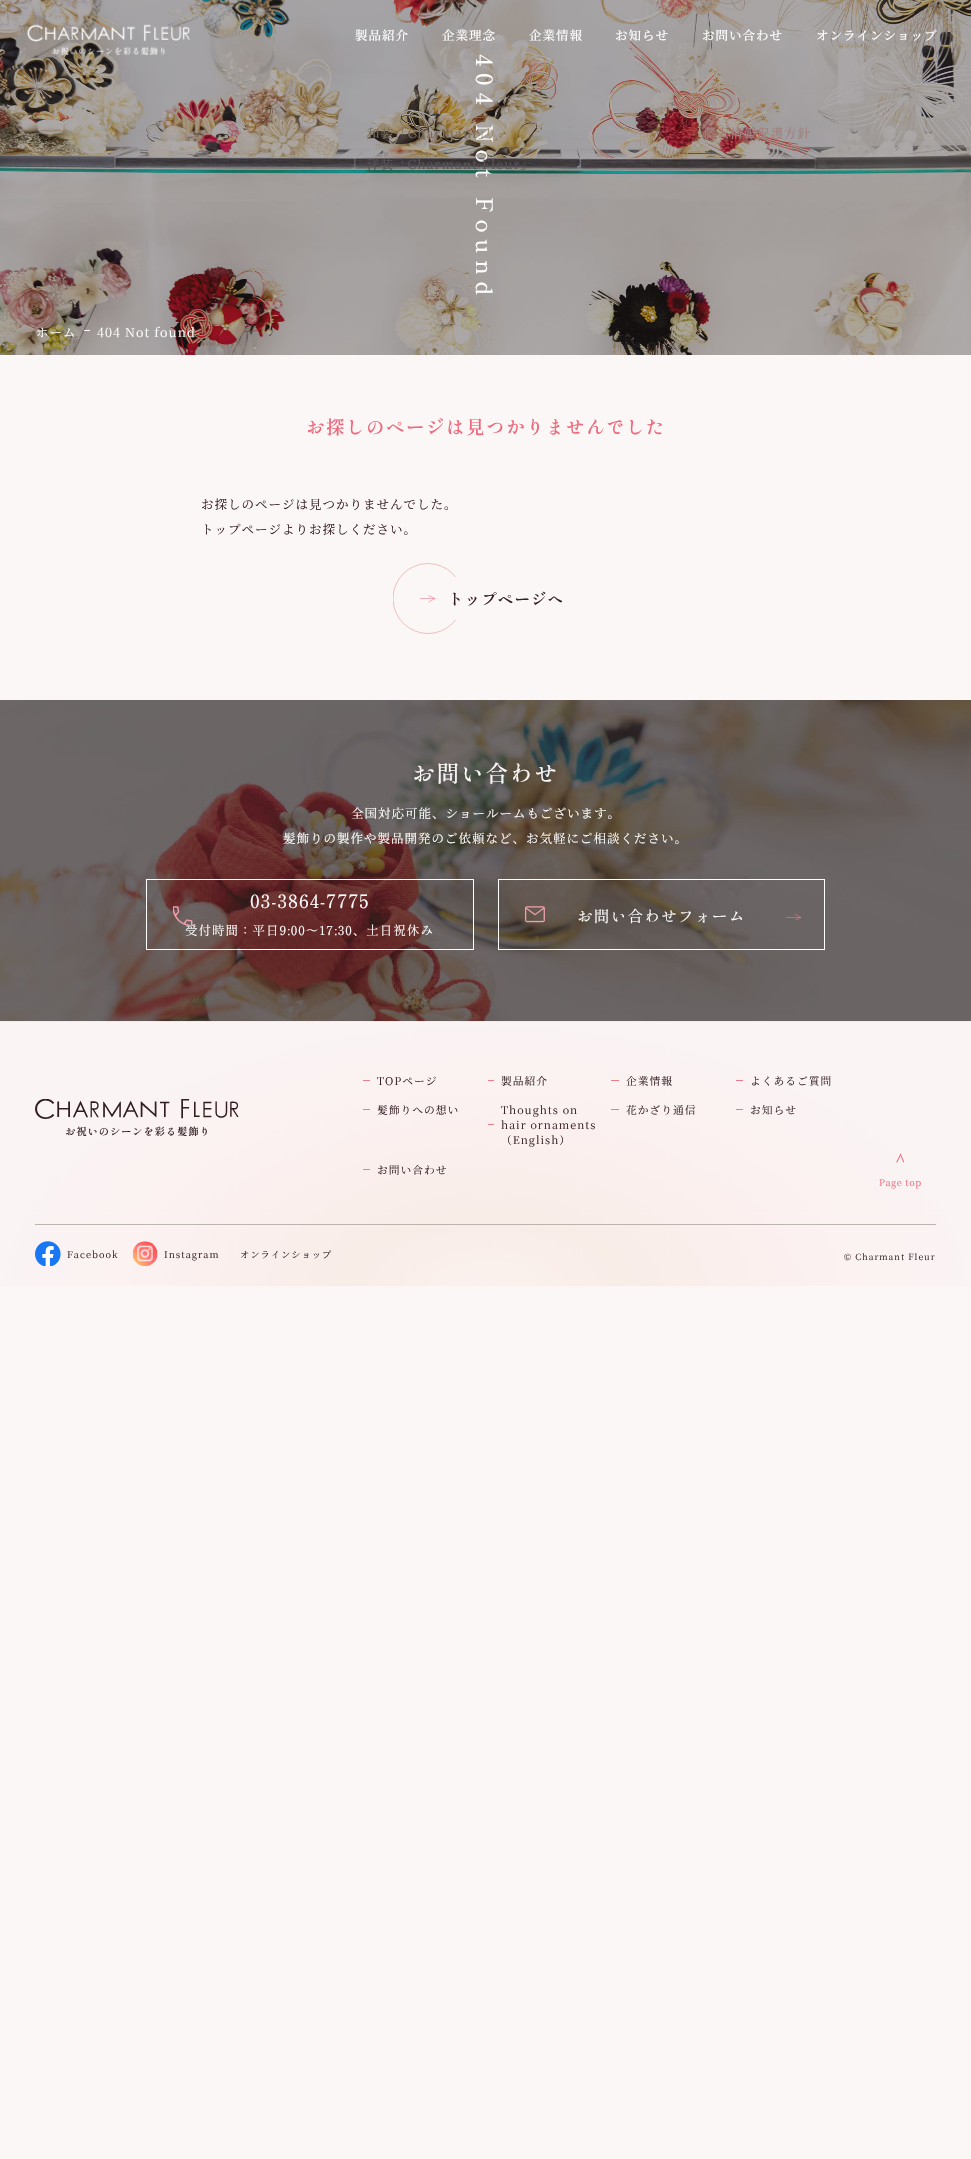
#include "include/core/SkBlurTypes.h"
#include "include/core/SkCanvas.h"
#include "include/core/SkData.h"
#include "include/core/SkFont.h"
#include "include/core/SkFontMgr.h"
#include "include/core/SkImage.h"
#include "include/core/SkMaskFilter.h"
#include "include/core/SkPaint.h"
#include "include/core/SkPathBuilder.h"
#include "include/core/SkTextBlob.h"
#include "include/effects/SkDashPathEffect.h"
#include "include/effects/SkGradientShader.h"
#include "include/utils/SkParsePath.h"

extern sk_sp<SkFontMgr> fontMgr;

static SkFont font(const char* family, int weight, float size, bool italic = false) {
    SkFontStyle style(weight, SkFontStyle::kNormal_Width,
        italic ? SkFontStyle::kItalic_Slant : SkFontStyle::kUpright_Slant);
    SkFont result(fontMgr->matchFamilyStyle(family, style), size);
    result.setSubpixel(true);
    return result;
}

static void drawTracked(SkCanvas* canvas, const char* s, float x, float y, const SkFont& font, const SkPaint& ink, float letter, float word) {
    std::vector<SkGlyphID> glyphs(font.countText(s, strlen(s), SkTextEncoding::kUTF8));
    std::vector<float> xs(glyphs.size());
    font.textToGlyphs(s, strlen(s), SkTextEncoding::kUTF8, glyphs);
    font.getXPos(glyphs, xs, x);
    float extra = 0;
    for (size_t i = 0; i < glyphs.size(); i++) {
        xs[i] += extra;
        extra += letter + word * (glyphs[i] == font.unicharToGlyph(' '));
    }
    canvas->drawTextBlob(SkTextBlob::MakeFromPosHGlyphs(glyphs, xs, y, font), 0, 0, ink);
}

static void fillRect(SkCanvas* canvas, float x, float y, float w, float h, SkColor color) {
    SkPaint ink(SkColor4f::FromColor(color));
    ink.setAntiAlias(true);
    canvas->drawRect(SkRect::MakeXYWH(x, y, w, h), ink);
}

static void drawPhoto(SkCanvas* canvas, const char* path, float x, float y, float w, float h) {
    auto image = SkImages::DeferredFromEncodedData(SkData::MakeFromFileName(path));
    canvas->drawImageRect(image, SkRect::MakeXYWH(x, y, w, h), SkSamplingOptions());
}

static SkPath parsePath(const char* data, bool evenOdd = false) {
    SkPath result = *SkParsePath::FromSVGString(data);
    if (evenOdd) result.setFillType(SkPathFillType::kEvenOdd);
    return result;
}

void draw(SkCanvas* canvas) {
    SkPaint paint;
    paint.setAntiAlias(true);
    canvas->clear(0xFFFCF7F7);
    drawPhoto(canvas, "assets/img2.png", 0, 0, 971, 355);
    drawPhoto(canvas, "assets/img1.png", 27, 24, 164, 31);
    SkFont font1 = font("Noto Serif JP", 500, 12.5f);
    paint.setColor(0xFFFFFFFF);
    drawTracked(canvas, "製品紹介", 355, 40, font1, paint, 1, 0);
    SkFont font2 = font("Shippori Mincho", 500, 22.75f);
    canvas->save();
    canvas->rotate(90, 476, 54);
    drawTracked(canvas, "404 Not Found", 476, 54, font2, paint, 6.8f, 0);
    canvas->restore();
    paint.setColor(0xFF796D5D);
    drawTracked(canvas, "和装「Charmant」", 367, 138, font1, paint, 1, 0);
    paint.setColor(0xFF575355);
    drawTracked(canvas, "洋装「Charmant Fleur」", 367, 169, font1, paint, 1, 0);
    paint.setColor(0xFFFFFFFF);
    drawTracked(canvas, "企業理念", 442, 40, font1, paint, 1, 0);
    paint.setColor(0xFF9C8C71);
    drawTracked(canvas, "り", 484, 138, font1, paint, 1, 0);
    paint.setColor(0xFFFFFFFF);
    drawTracked(canvas, "企業情報", 529, 40, font1, paint, 1, 0);
    drawTracked(canvas, "お知らせ", 615, 40, font1, paint, 1, 0);
    drawTracked(canvas, "お問い合わせ", 702, 40, font1, paint, 1, 0);
    paint.setColor(0xFF9F807E);
    drawTracked(canvas, "個人情報保護方針", 703, 138, font1, paint, 1, 0);
    paint.setColor(0xFFFFFFFF);
    drawTracked(canvas, "オンラインショップ", 816, 40, font1, paint, 1, 0);
    SkFont font3 = font("Noto Serif JP", 400, 12.5f);
    drawTracked(canvas, "ホーム", 36, 337, font3, paint, 1, 0);
    fillRect(canvas, 84, 330, 6, 1, 0xFFFFFFFF);
    drawTracked(canvas, "404 Not found", 97, 337, font3, paint, 1, 0);
    SkFont font4 = font("Shippori Mincho", 600, 18.5f);
    paint.setColor(0xFFEE697B);
    drawTracked(canvas, "お探しのページは見つかりませんでした", 306, 434, font4, paint, 1.5f, 0);
    paint.setColor(0xFF331E25);
    drawTracked(canvas, "お探しのページは見つかりませんでした。", 201, 509, font3, paint, 1, 0);
    drawTracked(canvas, "トップページよりお探しください。", 201, 534, font3, paint, 1, 0);
    canvas->save();
    canvas->clipRect(SkRect::MakeXYWH(393, 563, 67, 72));
    canvas->clipPath(parsePath("M460 562.5V577H448.5V620H460V634.5H392.5V562.5Z"), true);
    paint.setStroke(true);
    paint.setStrokeWidth(0.7f);
    paint.setColor(0xFFE9A69A);
    canvas->drawCircle(428, 598.5f, 35, paint);
    canvas->restore();
    fillRect(canvas, 420, 598, 15, 1, 0xFFF4ADB6);
    paint.setStrokeWidth(0.6f);
    paint.setColor(0xFFEE7B8A);
    canvas->drawPath(parsePath("M428.5 595.5L435 598.5L428.5 602"), paint);
    SkFont font5 = font("Shippori Mincho", 600, 15.6f);
    paint.setStroke(false);
    paint.setColor(0xFF331E25);
    drawTracked(canvas, "トップページへ", 448, 605, font5, paint, 1, 0);
    drawPhoto(canvas, "assets/img3.png", 0, 700, 971, 322);
    paint.setColor(0xFFFCF7F7);
    drawTracked(canvas, "お問い合わせ", 412, 782, font2, paint, 1.75f, 0);
    paint.setColor(0xFFFFFFFF);
    drawTracked(canvas, "全国対応可能、ショールームもございます。", 351, 818, font3, paint, 1, 0);
    drawTracked(canvas, "髪飾りの製作や製品開発のご依頼など、お気軽にご相談ください。", 283, 843, font3, paint, 1, 0);
    paint.setStroke(true);
    paint.setStrokeWidth(1);
    canvas->drawRect(SkRect::MakeXYWH(146.5f, 879.5f, 327, 70), paint);
    SkFont font6 = font("Shippori Mincho", 400, 12.5f);
    paint.setStroke(false);
    drawTracked(canvas, "受付時間：平日9:00～17:30、土日祝休み", 185, 935, font6, paint, 1, 0);
    drawPhoto(canvas, "assets/img4.png", 173, 906, 20, 20);
    SkFont font7 = font("Shippori Mincho", 400, 18.5f);
    drawTracked(canvas, "03-3864-7775", 250, 908, font7, paint, 1, 0);
    paint.setStroke(true);
    canvas->drawRect(SkRect::MakeXYWH(498.5f, 879.5f, 326, 70), paint);
    drawPhoto(canvas, "assets/img5.png", 525, 906, 20, 17);
    SkFont font8 = font("Shippori Mincho", 400, 15.6f);
    paint.setStroke(false);
    drawTracked(canvas, "お問い合わせフォーム", 577, 922, font8, paint, 1.25f, 0);
    fillRect(canvas, 786, 917, 15, 1, 0xFFB9727B);
    canvas->save();
    canvas->clipRect(SkRect::MakeXYWH(786, 914, 15, 6));
    paint.setStroke(true);
    paint.setStrokeWidth(0.6f);
    paint.setColor(0xFFEE7B8A);
    canvas->drawPath(parsePath("M794.5 914L801 917.5L794.5 920.5"), paint);
    canvas->restore();
    drawPhoto(canvas, "assets/img6.png", 0, 1021, 971, 266);
    fillRect(canvas, 35, 1224, 901, 1, 0xFFBBB5AF);
    drawPhoto(canvas, "assets/img7.png", 35, 1099, 204, 37);
    fillRect(canvas, 363, 1080, 7, 1, 0xFFEE7B8A);
    SkFont font9 = font("Noto Serif JP", 400, 10.75f);
    paint.setStroke(false);
    paint.setColor(0xFF331E25);
    drawTracked(canvas, "TOPページ", 377, 1085, font9, paint, 1, 0);
    fillRect(canvas, 488, 1080, 6, 1, 0xFFEE7B8A);
    drawTracked(canvas, "製品紹介", 501, 1085, font9, paint, 1, 0);
    fillRect(canvas, 611, 1080, 8, 1, 0xFFEE7B8A);
    drawTracked(canvas, "企業情報", 626, 1085, font9, paint, 1, 0);
    fillRect(canvas, 736, 1080, 7, 1, 0xFFEE7B8A);
    drawTracked(canvas, "よくあるご質問", 750, 1085, font9, paint, 1, 0);
    fillRect(canvas, 363, 1109, 7, 1, 0xFFEE7B8A);
    drawTracked(canvas, "髪飾りへの想い", 377, 1114, font9, paint, 1, 0);
    drawTracked(canvas, "Thoughts on", 501, 1114, font9, paint, 1, 0);
    fillRect(canvas, 488, 1124, 6, 1, 0xFFEE7B8A);
    drawTracked(canvas, "hair ornaments", 501, 1129, font9, paint, 1, 0);
    drawTracked(canvas, "（English）", 501, 1144, font9, paint, 1, 0);
    fillRect(canvas, 611, 1109, 8, 1, 0xFFEE7B8A);
    drawTracked(canvas, "花かざり通信", 626, 1114, font9, paint, 1, 0);
    fillRect(canvas, 736, 1109, 7, 1, 0xFFEE7B8A);
    drawTracked(canvas, "お知らせ", 750, 1114, font9, paint, 1, 0);
    fillRect(canvas, 363, 1169, 7, 1, 0xFFEE7B8A);
    drawTracked(canvas, "お問い合わせ", 377, 1174, font9, paint, 1, 0);
    paint.setColor(0xFFEE697B);
    canvas->drawPath(parsePath("M900.5 1153.5L904 1161.5L903.5 1163L900 1154.5Z"), paint);
    canvas->drawPath(parsePath("M900.5 1153.5L901 1154.5L897 1163L896.5 1161.5Z"), paint);
    SkFont font10 = font("Noto Serif JP", 400, 9.25f);
    drawTracked(canvas, "Page top", 879, 1186, font10, paint, 0.5f, 0);
    drawPhoto(canvas, "assets/img8.png", 35, 1241, 26, 25);
    paint.setColor(0xFF331E25);
    drawTracked(canvas, "Facebook", 67, 1258, font10, paint, 1, 0);
    drawPhoto(canvas, "assets/img9.png", 133, 1241, 25, 25);
    drawTracked(canvas, "Instagram", 164, 1258, font10, paint, 1, 0);
    drawTracked(canvas, "オンラインショップ", 240, 1258, font10, paint, 1, 0);
    SkFont font11 = font("Noto Serif JP", 400, 8.5f);
    drawTracked(canvas, "© Charmant Fleur", 844, 1260, font11, paint, 1, 0);
}
